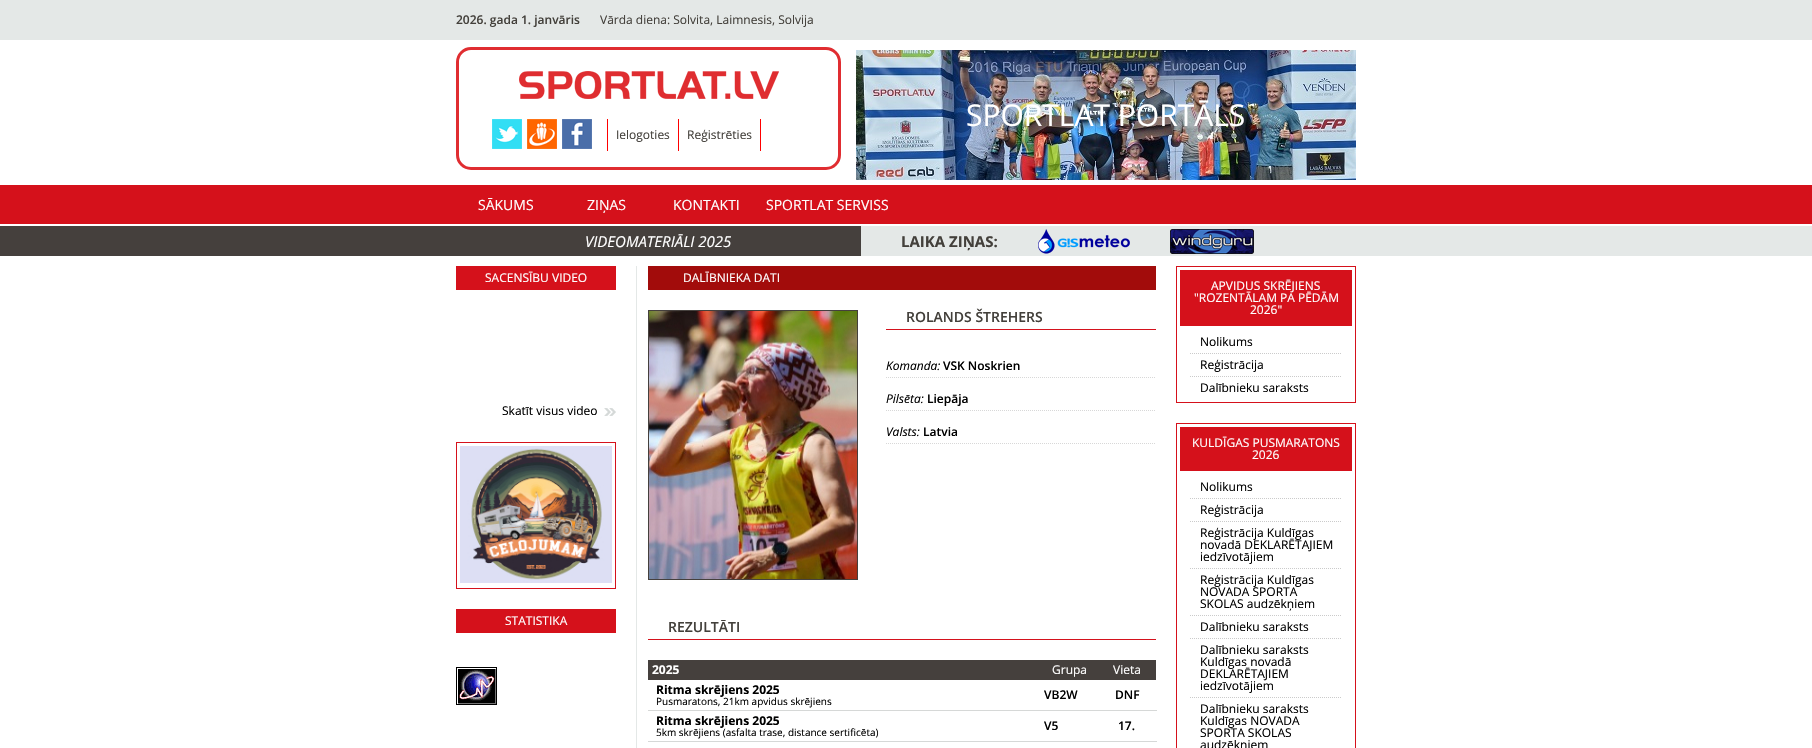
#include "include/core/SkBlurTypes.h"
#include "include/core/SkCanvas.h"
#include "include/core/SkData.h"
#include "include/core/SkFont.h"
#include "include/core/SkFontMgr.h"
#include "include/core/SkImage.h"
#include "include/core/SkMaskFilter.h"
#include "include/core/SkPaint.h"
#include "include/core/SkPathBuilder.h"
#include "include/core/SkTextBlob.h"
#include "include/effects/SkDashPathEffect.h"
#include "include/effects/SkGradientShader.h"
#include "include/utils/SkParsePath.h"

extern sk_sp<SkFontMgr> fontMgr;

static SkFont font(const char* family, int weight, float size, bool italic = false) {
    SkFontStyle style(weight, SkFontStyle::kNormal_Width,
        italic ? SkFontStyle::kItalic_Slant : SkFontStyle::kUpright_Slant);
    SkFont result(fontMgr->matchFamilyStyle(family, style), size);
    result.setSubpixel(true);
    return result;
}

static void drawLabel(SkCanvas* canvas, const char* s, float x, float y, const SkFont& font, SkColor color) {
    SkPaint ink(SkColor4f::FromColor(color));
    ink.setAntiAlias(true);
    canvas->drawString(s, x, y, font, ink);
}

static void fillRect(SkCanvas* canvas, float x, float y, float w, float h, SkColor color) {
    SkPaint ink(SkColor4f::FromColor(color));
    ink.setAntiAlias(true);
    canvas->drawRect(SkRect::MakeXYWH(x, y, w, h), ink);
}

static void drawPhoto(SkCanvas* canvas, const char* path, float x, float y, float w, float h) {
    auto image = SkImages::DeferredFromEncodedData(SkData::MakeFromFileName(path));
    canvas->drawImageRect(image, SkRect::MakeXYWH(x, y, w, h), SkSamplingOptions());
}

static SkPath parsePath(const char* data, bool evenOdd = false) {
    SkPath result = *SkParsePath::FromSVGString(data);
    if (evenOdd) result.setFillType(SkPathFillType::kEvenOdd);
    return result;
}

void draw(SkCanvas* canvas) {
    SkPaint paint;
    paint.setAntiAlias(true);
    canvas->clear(0xFFFFFFFF);
    fillRect(canvas, 0, 0, 1812, 40, 0xFFE4E8E7);
    SkFont font1 = font("Open Sans", 600, 12);
    drawLabel(canvas, "2026. gada 1. janvāris", 456, 24, font1, 0xFF43403B);
    SkFont font2 = font("Open Sans", 400, 12);
    drawLabel(canvas, "Vārda diena: Solvita, Laimnesis, Solvija", 600, 24, font2, 0xFF43403B);
    drawPhoto(canvas, "assets/img1.png", 856, 50, 500, 130);
    SkFont font3 = font("Open Sans", 400, 30);
    drawLabel(canvas, "SPORTLAT PORTĀLS", 966, 126, font3, 0xFFFFFFFF);
    paint.setStroke(true);
    paint.setStrokeWidth(3);
    paint.setColor(0xFFE02D31);
    canvas->drawRoundRect(SkRect::MakeXYWH(457.5f, 48.5f, 382, 120), 13.5f, 13.5f, paint);
    drawPhoto(canvas, "assets/img2.png", 519, 71, 260, 28);
    drawPhoto(canvas, "assets/img3.png", 492, 119, 30, 30);
    drawPhoto(canvas, "assets/img4.png", 527, 119, 30, 30);
    drawPhoto(canvas, "assets/img5.png", 562, 119, 30, 30);
    fillRect(canvas, 760, 119, 1, 32, 0xFFFF0000);
    fillRect(canvas, 607, 119, 1, 32, 0xFFFF0000);
    drawLabel(canvas, "Ielogoties", 616, 139, font2, 0xFF43403B);
    fillRect(canvas, 678, 119, 1, 32, 0xFFFF0000);
    drawLabel(canvas, "Reģistrēties", 687, 139, font2, 0xFF43403B);
    fillRect(canvas, 0, 185, 1812, 39, 0xFFD5111B);
    SkFont font4 = font("Open Sans", 400, 14);
    drawLabel(canvas, "SĀKUMS", 478, 210, font4, 0xFFFFFFFF);
    drawLabel(canvas, "ZIŅAS", 587, 210, font4, 0xFFFFFFFF);
    drawLabel(canvas, "KONTAKTI", 673, 210, font4, 0xFFFFFFFF);
    drawLabel(canvas, "SPORTLAT SERVISS", 766, 210, font4, 0xFFFFFFFF);
    fillRect(canvas, 861, 226, 951, 30, 0xFFE4E8E7);
    fillRect(canvas, 0, 226, 861, 30, 0xFF45403D);
    SkFont font5 = font("Open Sans", 400, 15, true);
    drawLabel(canvas, "VIDEOMATERIĀLI 2025", 585, 247, font5, 0xFFFFFFFF);
    SkFont font6 = font("Open Sans", 700, 15);
    drawLabel(canvas, "LAIKA ZIŅAS:", 901, 247, font6, 0xFF43403B);
    drawPhoto(canvas, "assets/img6.png", 1038, 229, 92, 25);
    drawPhoto(canvas, "assets/img7.png", 1170, 229, 84, 25);
    fillRect(canvas, 456, 266, 160, 24, 0xFFD5111B);
    drawLabel(canvas, "SACENSĪBU VIDEO", 485, 282, font2, 0xFFFFFFFF);
    drawLabel(canvas, "Skatīt visus video", 502, 415, font2, 0xFF000000);
    drawPhoto(canvas, "assets/img8.png", 604, 408, 12, 8);
    paint.setStrokeWidth(1);
    paint.setColor(0xFFD5111B);
    canvas->drawRect(SkRect::MakeXYWH(456.5f, 442.5f, 159, 146), paint);
    drawPhoto(canvas, "assets/img9.png", 460, 446, 152, 137);
    fillRect(canvas, 456, 609, 160, 24, 0xFFD5111B);
    drawLabel(canvas, "STATISTIKA", 505, 625, font2, 0xFFFFFFFF);
    drawPhoto(canvas, "assets/img10.png", 456, 667, 41, 38);
    fillRect(canvas, 636, 266, 1, 482, 0xFFE4E8E7);
    fillRect(canvas, 648, 266, 508, 24, 0xFFA20C0B);
    drawLabel(canvas, "DALĪBNIEKA DATI", 683, 282, font2, 0xFFFFFFFF);
    paint.setColor(0xFF45403D);
    canvas->drawRect(SkRect::MakeXYWH(648.5f, 310.5f, 209, 269), paint);
    drawPhoto(canvas, "assets/img11.png", 649, 311, 208, 268);
    fillRect(canvas, 886, 329, 270, 1, 0xFFD4121D);
    SkFont font7 = font("Open Sans", 600, 14);
    drawLabel(canvas, "ROLANDS ŠTREHERS", 906, 322, font7, 0xFF43403B);
    paint.setColor(0xFFD8D8D8);
    paint.setPathEffect(SkDashPathEffect::Make({{1, 1}}, 0));
    canvas->drawPath(parsePath("M886 377.5H1156"), paint);
    paint.setPathEffect(nullptr);
    SkFont font8 = font("Open Sans", 400, 12, true);
    drawLabel(canvas, "Komanda:", 886, 370, font8, 0xFF000000);
    drawLabel(canvas, "VSK Noskrien", 943, 370, font1, 0xFF000000);
    paint.setPathEffect(SkDashPathEffect::Make({{1, 1}}, 0));
    canvas->drawPath(parsePath("M886 410.5H1156"), paint);
    paint.setPathEffect(nullptr);
    drawLabel(canvas, "Pilsēta:", 886, 403, font8, 0xFF000000);
    drawLabel(canvas, "Liepāja", 927, 403, font1, 0xFF000000);
    paint.setPathEffect(SkDashPathEffect::Make({{1, 1}}, 0));
    canvas->drawPath(parsePath("M886 443.5H1156"), paint);
    paint.setPathEffect(nullptr);
    drawLabel(canvas, "Valsts:", 886, 436, font8, 0xFF000000);
    drawLabel(canvas, "Latvia", 923, 436, font1, 0xFF000000);
    fillRect(canvas, 648, 639, 508, 1, 0xFFD4121D);
    drawLabel(canvas, "REZULTĀTI", 668, 632, font7, 0xFF43403B);
    fillRect(canvas, 648, 660, 508, 20, 0xFF45403D);
    SkFont font9 = font("Open Sans", 700, 12);
    drawLabel(canvas, "2025", 652, 674, font9, 0xFFFFFFFF);
    drawLabel(canvas, "Grupa", 1052, 674, font2, 0xFFFFFFFF);
    drawLabel(canvas, "Vieta", 1113, 674, font2, 0xFFFFFFFF);
    drawLabel(canvas, "Ritma skrējiens 2025", 656, 694, font9, 0xFF000000);
    SkFont font10 = font("Open Sans", 400, 10);
    drawLabel(canvas, "Pusmaratons, 21km apvidus skrējiens", 656, 705, font10, 0xFF000000);
    drawLabel(canvas, "VB2W", 1044, 699, font1, 0xFF000000);
    fillRect(canvas, 648, 710, 509, 1, 0xFFD6D8D7);
    drawLabel(canvas, "DNF", 1115, 699, font1, 0xFF000000);
    drawLabel(canvas, "Ritma skrējiens 2025", 656, 725, font9, 0xFF000000);
    drawLabel(canvas, "5km skrējiens (asfalta trase, distance sertificēta)", 656, 736, font10, 0xFF000000);
    drawLabel(canvas, "V5", 1044, 730, font1, 0xFF000000);
    fillRect(canvas, 648, 741, 509, 1, 0xFFD6D8D7);
    drawLabel(canvas, "17.", 1118, 730, font1, 0xFF000000);
    paint.setColor(0xFFD5111B);
    canvas->drawRect(SkRect::MakeXYWH(1176.5f, 266.5f, 179, 136), paint);
    fillRect(canvas, 1180, 270, 172, 56, 0xFFD5111B);
    drawLabel(canvas, "APVIDUS SKRĒJIENS", 1211, 290, font2, 0xFFFFFFFF);
    drawLabel(canvas, "\"ROZENTĀLAM PA PĒDĀM", 1194, 302, font2, 0xFFFFFFFF);
    drawLabel(canvas, "2026\"", 1250, 314, font2, 0xFFFFFFFF);
    paint.setColor(0xFFCBCBCB);
    paint.setPathEffect(SkDashPathEffect::Make({{1, 1}}, 0));
    canvas->drawPath(parsePath("M1190 353.5H1342"), paint);
    paint.setPathEffect(nullptr);
    drawLabel(canvas, "Nolikums", 1200, 346, font2, 0xFF000000);
    paint.setPathEffect(SkDashPathEffect::Make({{1, 1}}, 0));
    canvas->drawPath(parsePath("M1190 376.5H1342"), paint);
    paint.setPathEffect(nullptr);
    drawLabel(canvas, "Reģistrācija", 1200, 369, font2, 0xFF000000);
    drawLabel(canvas, "Dalībnieku saraksts", 1200, 392, font2, 0xFF000000);
    paint.setColor(0xFFD5111B);
    canvas->drawRect(SkRect::MakeXYWH(1176.5f, 423.5f, 179, 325), paint);
    fillRect(canvas, 1180, 427, 172, 44, 0xFFD5111B);
    drawLabel(canvas, "KULDĪGAS PUSMARATONS", 1192, 447, font2, 0xFFFFFFFF);
    drawLabel(canvas, "2026", 1252, 459, font2, 0xFFFFFFFF);
    paint.setColor(0xFFCBCBCB);
    paint.setPathEffect(SkDashPathEffect::Make({{1, 1}}, 0));
    canvas->drawPath(parsePath("M1190 498.5H1342"), paint);
    paint.setPathEffect(nullptr);
    drawLabel(canvas, "Nolikums", 1200, 491, font2, 0xFF000000);
    paint.setPathEffect(SkDashPathEffect::Make({{1, 1}}, 0));
    canvas->drawPath(parsePath("M1190 521.5H1342"), paint);
    paint.setPathEffect(nullptr);
    drawLabel(canvas, "Reģistrācija", 1200, 514, font2, 0xFF000000);
    paint.setPathEffect(SkDashPathEffect::Make({{1, 1}}, 0));
    canvas->drawPath(parsePath("M1190 568.5H1342"), paint);
    paint.setPathEffect(nullptr);
    drawLabel(canvas, "Reģistrācija Kuldīgas", 1200, 537, font2, 0xFF000000);
    drawLabel(canvas, "novadā DEKLARĒTAJIEM", 1200, 549, font2, 0xFF000000);
    drawLabel(canvas, "iedzīvotājiem", 1200, 561, font2, 0xFF000000);
    paint.setPathEffect(SkDashPathEffect::Make({{1, 1}}, 0));
    canvas->drawPath(parsePath("M1190 615.5H1342"), paint);
    paint.setPathEffect(nullptr);
    drawLabel(canvas, "Reģistrācija Kuldīgas", 1200, 584, font2, 0xFF000000);
    drawLabel(canvas, "NOVADA SPORTA", 1200, 596, font2, 0xFF000000);
    drawLabel(canvas, "SKOLAS audzēkņiem", 1200, 608, font2, 0xFF000000);
    paint.setPathEffect(SkDashPathEffect::Make({{1, 1}}, 0));
    canvas->drawPath(parsePath("M1190 638.5H1342"), paint);
    paint.setPathEffect(nullptr);
    drawLabel(canvas, "Dalībnieku saraksts", 1200, 631, font2, 0xFF000000);
    paint.setPathEffect(SkDashPathEffect::Make({{1, 1}}, 0));
    canvas->drawPath(parsePath("M1190 697.5H1342"), paint);
    paint.setPathEffect(nullptr);
    drawLabel(canvas, "Dalībnieku saraksts", 1200, 654, font2, 0xFF000000);
    drawLabel(canvas, "Kuldīgas novadā", 1200, 666, font2, 0xFF000000);
    drawLabel(canvas, "DEKLARĒTAJIEM", 1200, 678, font2, 0xFF000000);
    drawLabel(canvas, "iedzīvotājiem", 1200, 690, font2, 0xFF000000);
    drawLabel(canvas, "Dalībnieku saraksts", 1200, 713, font2, 0xFF000000);
    drawLabel(canvas, "Kuldīgas NOVADA", 1200, 725, font2, 0xFF000000);
    drawLabel(canvas, "SPORTA SKOLAS", 1200, 737, font2, 0xFF000000);
    drawLabel(canvas, "audzēkņiem", 1200, 749, font2, 0xFF000000);
}
